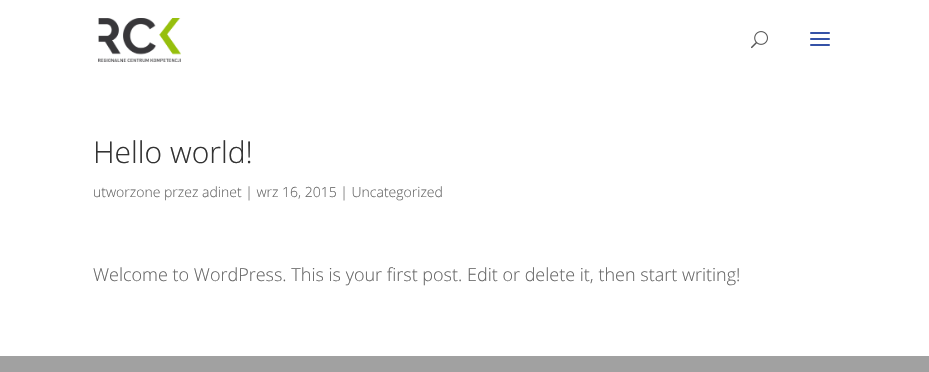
#include "include/core/SkBlurTypes.h"
#include "include/core/SkCanvas.h"
#include "include/core/SkData.h"
#include "include/core/SkFont.h"
#include "include/core/SkFontMgr.h"
#include "include/core/SkImage.h"
#include "include/core/SkMaskFilter.h"
#include "include/core/SkPaint.h"
#include "include/core/SkPathBuilder.h"
#include "include/core/SkTextBlob.h"
#include "include/effects/SkDashPathEffect.h"
#include "include/effects/SkGradientShader.h"
#include "include/utils/SkParsePath.h"

extern sk_sp<SkFontMgr> fontMgr;

static SkFont font(const char* family, int weight, float size, bool italic = false) {
    SkFontStyle style(weight, SkFontStyle::kNormal_Width,
        italic ? SkFontStyle::kItalic_Slant : SkFontStyle::kUpright_Slant);
    SkFont result(fontMgr->matchFamilyStyle(family, style), size);
    result.setSubpixel(true);
    return result;
}

static void drawLabel(SkCanvas* canvas, const char* s, float x, float y, const SkFont& font, SkColor color) {
    SkPaint ink(SkColor4f::FromColor(color));
    ink.setAntiAlias(true);
    canvas->drawString(s, x, y, font, ink);
}

static void fillRect(SkCanvas* canvas, float x, float y, float w, float h, SkColor color) {
    SkPaint ink(SkColor4f::FromColor(color));
    ink.setAntiAlias(true);
    canvas->drawRect(SkRect::MakeXYWH(x, y, w, h), ink);
}

static void drawPhoto(SkCanvas* canvas, const char* path, float x, float y, float w, float h) {
    auto image = SkImages::DeferredFromEncodedData(SkData::MakeFromFileName(path));
    canvas->drawImageRect(image, SkRect::MakeXYWH(x, y, w, h), SkSamplingOptions());
}

void draw(SkCanvas* canvas) {
    SkPaint paint;
    paint.setAntiAlias(true);
    canvas->clear(0xFFFFFFFF);
    drawPhoto(canvas, "assets/img1.png", 98, 18, 83, 44);
    drawPhoto(canvas, "assets/img2.png", 751, 31, 17, 18);
    drawPhoto(canvas, "assets/img3.png", 810, 32, 20, 14);
    SkFont font1 = font("Open Sans", 300, 30);
    drawLabel(canvas, "Hello world!", 93, 163, font1, 0xFF333333);
    SkFont font2 = font("Open Sans", 300, 14);
    drawLabel(canvas, "utworzone przez adinet | wrz 16, 2015 | Uncategorized", 93, 197, font2, 0xFF666666);
    SkFont font3 = font("Open Sans", 300, 18);
    drawLabel(canvas, "Welcome to WordPress. This is your first post. Edit or delete it, then start writing!", 93, 281, font3, 0xFF666666);
    fillRect(canvas, 0, 356, 929, 16, 0xFFA1A1A1);
}
